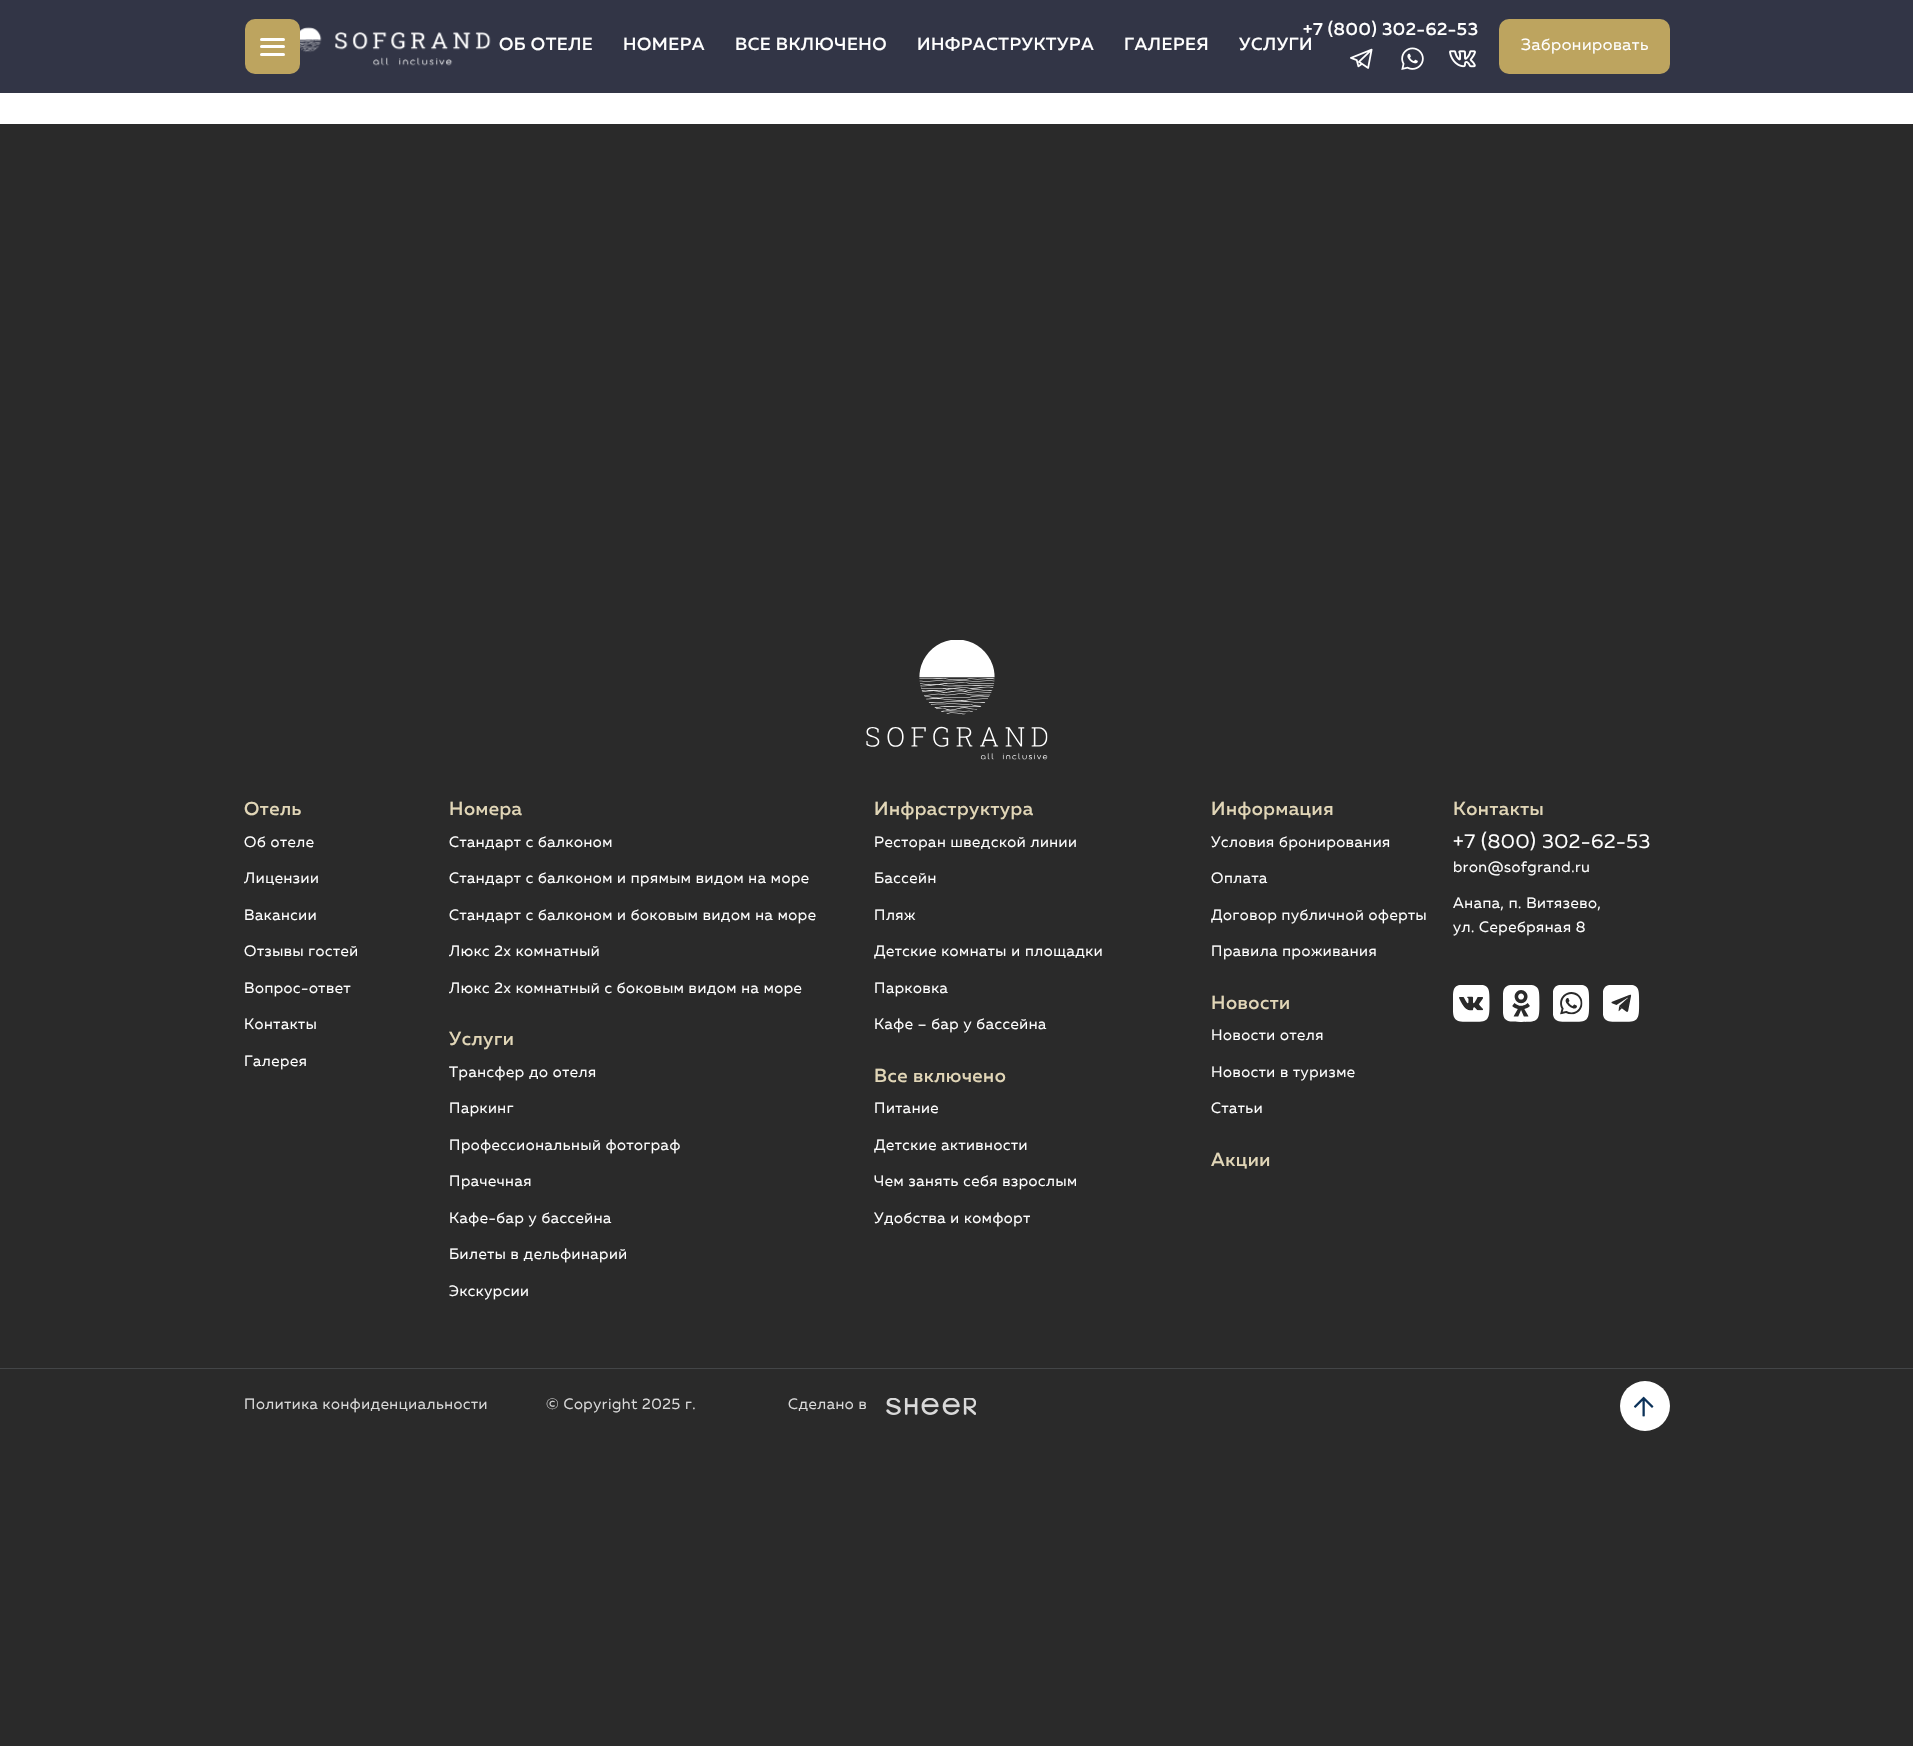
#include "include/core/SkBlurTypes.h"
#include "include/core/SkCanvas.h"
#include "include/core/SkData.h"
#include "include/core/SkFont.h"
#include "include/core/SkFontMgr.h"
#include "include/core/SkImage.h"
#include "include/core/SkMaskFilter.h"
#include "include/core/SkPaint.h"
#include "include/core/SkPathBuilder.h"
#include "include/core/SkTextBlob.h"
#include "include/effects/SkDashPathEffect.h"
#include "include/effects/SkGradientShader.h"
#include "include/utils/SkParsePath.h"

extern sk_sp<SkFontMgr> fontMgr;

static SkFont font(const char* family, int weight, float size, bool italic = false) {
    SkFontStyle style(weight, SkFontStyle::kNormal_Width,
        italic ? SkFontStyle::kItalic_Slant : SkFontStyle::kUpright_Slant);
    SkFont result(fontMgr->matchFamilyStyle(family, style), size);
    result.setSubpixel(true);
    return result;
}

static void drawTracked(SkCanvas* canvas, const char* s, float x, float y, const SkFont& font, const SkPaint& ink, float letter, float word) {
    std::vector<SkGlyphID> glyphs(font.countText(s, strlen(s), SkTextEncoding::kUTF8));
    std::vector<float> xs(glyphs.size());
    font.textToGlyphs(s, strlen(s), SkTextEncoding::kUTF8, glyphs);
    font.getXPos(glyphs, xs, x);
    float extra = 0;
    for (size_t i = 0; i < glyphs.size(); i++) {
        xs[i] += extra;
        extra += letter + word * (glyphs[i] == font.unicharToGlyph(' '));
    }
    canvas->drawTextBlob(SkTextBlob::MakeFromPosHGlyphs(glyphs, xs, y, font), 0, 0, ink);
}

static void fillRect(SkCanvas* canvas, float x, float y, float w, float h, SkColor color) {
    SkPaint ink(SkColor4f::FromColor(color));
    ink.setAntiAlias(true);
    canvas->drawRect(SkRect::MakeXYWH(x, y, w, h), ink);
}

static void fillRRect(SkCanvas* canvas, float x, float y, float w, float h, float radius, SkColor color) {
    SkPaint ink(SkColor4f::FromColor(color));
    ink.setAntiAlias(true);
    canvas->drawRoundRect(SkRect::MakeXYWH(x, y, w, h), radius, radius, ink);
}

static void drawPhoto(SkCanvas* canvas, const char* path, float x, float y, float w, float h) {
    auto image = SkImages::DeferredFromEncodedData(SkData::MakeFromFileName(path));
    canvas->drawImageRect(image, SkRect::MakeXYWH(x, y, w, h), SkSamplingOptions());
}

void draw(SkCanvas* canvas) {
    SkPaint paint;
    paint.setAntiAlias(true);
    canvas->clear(0xFFFFFFFF);
    fillRect(canvas, 0, 0, 1913, 93, 0xFF323546);
    fillRRect(canvas, 245, 19, 55, 55, 10, 0xFFBDA45F);
    fillRRect(canvas, 260, 38, 25, 3, 1.5f, 0xFFFFFFFF);
    fillRRect(canvas, 260, 45, 25, 3, 1.5f, 0xFFFFFFFF);
    fillRRect(canvas, 260, 53, 25, 3, 1.5f, 0xFFFFFFFF);
    drawPhoto(canvas, "assets/img1.png", 300, 27, 191, 39);
    SkFont font1 = font("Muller", 500, 17.5f);
    paint.setColor(0xFFFFFFFF);
    drawTracked(canvas, "ОБ ОТЕЛЕ", 499, 50, font1, paint, 0.55f, 0);
    drawTracked(canvas, "НОМЕРА", 623, 50, font1, paint, 0.55f, 0);
    drawTracked(canvas, "ВСЕ ВКЛЮЧЕНО", 735, 50, font1, paint, 0.55f, 0);
    drawTracked(canvas, "ИНФРАСТРУКТУРА", 917, 50, font1, paint, 0.55f, 0);
    drawTracked(canvas, "ГАЛЕРЕЯ", 1124, 50, font1, paint, 0.55f, 0);
    drawTracked(canvas, "УСЛУГИ", 1239, 50, font1, paint, 0.55f, 0);
    drawTracked(canvas, "+7 (800) 302-62-53", 1303, 35, font1, paint, 0.55f, 0);
    drawPhoto(canvas, "assets/img2.png", 1350, 48, 23, 21);
    drawPhoto(canvas, "assets/img3.png", 1401, 47, 23, 23);
    drawPhoto(canvas, "assets/img4.png", 1449, 50, 27, 18);
    fillRRect(canvas, 1499, 19, 171, 55, 10, 0xFFBDA45F);
    SkFont font2 = font("Muller", 400, 16.25f);
    drawTracked(canvas, "Забронировать", 1521, 50, font2, paint, 0.55f, 0);
    fillRect(canvas, 0, 124, 1913, 1622, 0xFF2A2A2A);
    drawPhoto(canvas, "assets/img5.png", 866, 640, 182, 120);
    SkFont font3 = font("Muller", 500, 18.75f);
    paint.setColor(0xFFE1D6B7);
    drawTracked(canvas, "Отель", 244, 815, font3, paint, 0.5f, 0);
    SkFont font4 = font("Muller", 400, 15);
    paint.setColor(0xFFFFFFFF);
    drawTracked(canvas, "Об отеле", 244, 847, font4, paint, 0.55f, 0);
    drawTracked(canvas, "Лицензии", 244, 883, font4, paint, 0.55f, 0);
    drawTracked(canvas, "Вакансии", 244, 920, font4, paint, 0.55f, 0);
    drawTracked(canvas, "Отзывы гостей", 244, 956, font4, paint, 0.55f, 0);
    drawTracked(canvas, "Вопрос-ответ", 244, 993, font4, paint, 0.55f, 0);
    drawTracked(canvas, "Контакты", 244, 1029, font4, paint, 0.55f, 0);
    drawTracked(canvas, "Галерея", 244, 1066, font4, paint, 0.55f, 0);
    paint.setColor(0xFFE1D6B7);
    drawTracked(canvas, "Номера", 449, 815, font3, paint, 0.5f, 0);
    paint.setColor(0xFFFFFFFF);
    drawTracked(canvas, "Стандарт с балконом", 449, 847, font4, paint, 0.55f, 0);
    drawTracked(canvas, "Стандарт с балконом и прямым видом на море", 449, 883, font4, paint, 0.55f, 0);
    drawTracked(canvas, "Стандарт с балконом и боковым видом на море", 449, 920, font4, paint, 0.55f, 0);
    drawTracked(canvas, "Люкс 2х комнатный", 449, 956, font4, paint, 0.55f, 0);
    drawTracked(canvas, "Люкс 2х комнатный с боковым видом на море", 449, 993, font4, paint, 0.55f, 0);
    paint.setColor(0xFFE1D6B7);
    drawTracked(canvas, "Услуги", 449, 1045, font3, paint, 0.5f, 0);
    paint.setColor(0xFFFFFFFF);
    drawTracked(canvas, "Трансфер до отеля", 449, 1077, font4, paint, 0.55f, 0);
    drawTracked(canvas, "Паркинг", 449, 1113, font4, paint, 0.55f, 0);
    drawTracked(canvas, "Профессиональный фотограф", 449, 1150, font4, paint, 0.55f, 0);
    drawTracked(canvas, "Прачечная", 449, 1186, font4, paint, 0.55f, 0);
    drawTracked(canvas, "Кафе-бар у бассейна", 449, 1223, font4, paint, 0.55f, 0);
    drawTracked(canvas, "Билеты в дельфинарий", 449, 1259, font4, paint, 0.55f, 0);
    drawTracked(canvas, "Экскурсии", 449, 1296, font4, paint, 0.55f, 0);
    paint.setColor(0xFFE1D6B7);
    drawTracked(canvas, "Инфраструктура", 874, 815, font3, paint, 0.5f, 0);
    paint.setColor(0xFFFFFFFF);
    drawTracked(canvas, "Ресторан шведской линии", 874, 847, font4, paint, 0.55f, 0);
    drawTracked(canvas, "Бассейн", 874, 883, font4, paint, 0.55f, 0);
    drawTracked(canvas, "Пляж", 874, 920, font4, paint, 0.55f, 0);
    drawTracked(canvas, "Детские комнаты и площадки", 874, 956, font4, paint, 0.55f, 0);
    drawTracked(canvas, "Парковка", 874, 993, font4, paint, 0.55f, 0);
    drawTracked(canvas, "Кафе – бар у бассейна", 874, 1029, font4, paint, 0.55f, 0);
    paint.setColor(0xFFE1D6B7);
    drawTracked(canvas, "Все включено", 874, 1082, font3, paint, 0.5f, 0);
    paint.setColor(0xFFFFFFFF);
    drawTracked(canvas, "Питание", 874, 1113, font4, paint, 0.55f, 0);
    drawTracked(canvas, "Детские активности", 874, 1150, font4, paint, 0.55f, 0);
    drawTracked(canvas, "Чем занять себя взрослым", 874, 1186, font4, paint, 0.55f, 0);
    drawTracked(canvas, "Удобства и комфорт", 874, 1223, font4, paint, 0.55f, 0);
    paint.setColor(0xFFE1D6B7);
    drawTracked(canvas, "Информация", 1211, 815, font3, paint, 0.5f, 0);
    paint.setColor(0xFFFFFFFF);
    drawTracked(canvas, "Условия бронирования", 1211, 847, font4, paint, 0.55f, 0);
    drawTracked(canvas, "Оплата", 1211, 883, font4, paint, 0.55f, 0);
    drawTracked(canvas, "Договор публичной оферты", 1211, 920, font4, paint, 0.55f, 0);
    drawTracked(canvas, "Правила проживания", 1211, 956, font4, paint, 0.55f, 0);
    paint.setColor(0xFFE1D6B7);
    drawTracked(canvas, "Новости", 1211, 1009, font3, paint, 0.5f, 0);
    paint.setColor(0xFFFFFFFF);
    drawTracked(canvas, "Новости отеля", 1211, 1040, font4, paint, 0.55f, 0);
    drawTracked(canvas, "Новости в туризме", 1211, 1077, font4, paint, 0.55f, 0);
    drawTracked(canvas, "Статьи", 1211, 1113, font4, paint, 0.55f, 0);
    paint.setColor(0xFFE1D6B7);
    drawTracked(canvas, "Акции", 1211, 1166, font3, paint, 0.5f, 0);
    drawTracked(canvas, "Контакты", 1453, 815, font3, paint, 0.5f, 0);
    SkFont font5 = font("Muller", 400, 20);
    paint.setColor(0xFFFFFFFF);
    drawTracked(canvas, "+7 (800) 302-62-53", 1453, 848, font5, paint, 0.55f, 0);
    drawTracked(canvas, "bron@sofgrand.ru", 1453, 872, font4, paint, 0.55f, 0);
    drawTracked(canvas, "Анапа, п. Витязево,", 1453, 908, font4, paint, 0.55f, 0);
    drawTracked(canvas, "ул. Серебряная 8", 1453, 932, font4, paint, 0.55f, 0);
    drawPhoto(canvas, "assets/img6.png", 1453, 985, 37, 37);
    drawPhoto(canvas, "assets/img7.png", 1503, 985, 37, 37);
    drawPhoto(canvas, "assets/img8.png", 1553, 985, 37, 37);
    drawPhoto(canvas, "assets/img9.png", 1603, 985, 37, 37);
    fillRect(canvas, 0, 1368, 1913, 1, 0xFF434547);
    paint.setColor(0xFFD9D9D9);
    drawTracked(canvas, "Политика конфиденциальности", 244, 1409, font4, paint, 0.55f, 0);
    drawTracked(canvas, "© Copyright 2025 г.", 546, 1409, font4, paint, 0.55f, 0);
    drawTracked(canvas, "Сделано в", 788, 1409, font4, paint, 0.55f, 0);
    drawPhoto(canvas, "assets/img10.png", 886, 1398, 90, 17);
    paint.setColor(0xFFFFFFFF);
    canvas->drawCircle(1645, 1406, 25, paint);
    drawPhoto(canvas, "assets/img11.png", 1633, 1396, 21, 21);
}
